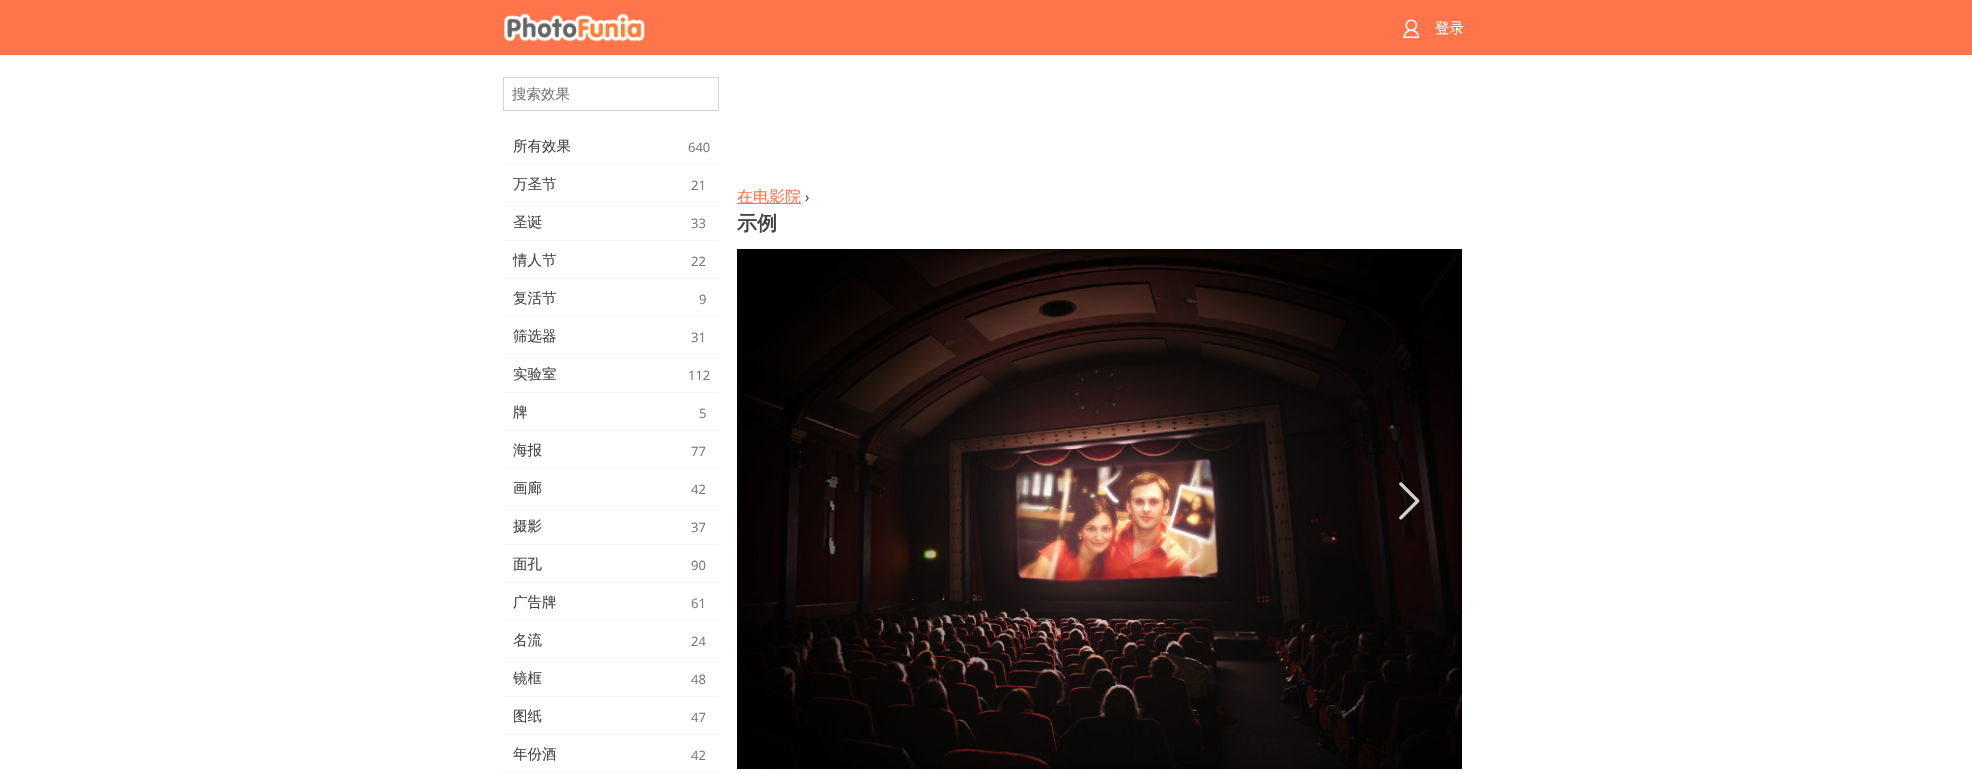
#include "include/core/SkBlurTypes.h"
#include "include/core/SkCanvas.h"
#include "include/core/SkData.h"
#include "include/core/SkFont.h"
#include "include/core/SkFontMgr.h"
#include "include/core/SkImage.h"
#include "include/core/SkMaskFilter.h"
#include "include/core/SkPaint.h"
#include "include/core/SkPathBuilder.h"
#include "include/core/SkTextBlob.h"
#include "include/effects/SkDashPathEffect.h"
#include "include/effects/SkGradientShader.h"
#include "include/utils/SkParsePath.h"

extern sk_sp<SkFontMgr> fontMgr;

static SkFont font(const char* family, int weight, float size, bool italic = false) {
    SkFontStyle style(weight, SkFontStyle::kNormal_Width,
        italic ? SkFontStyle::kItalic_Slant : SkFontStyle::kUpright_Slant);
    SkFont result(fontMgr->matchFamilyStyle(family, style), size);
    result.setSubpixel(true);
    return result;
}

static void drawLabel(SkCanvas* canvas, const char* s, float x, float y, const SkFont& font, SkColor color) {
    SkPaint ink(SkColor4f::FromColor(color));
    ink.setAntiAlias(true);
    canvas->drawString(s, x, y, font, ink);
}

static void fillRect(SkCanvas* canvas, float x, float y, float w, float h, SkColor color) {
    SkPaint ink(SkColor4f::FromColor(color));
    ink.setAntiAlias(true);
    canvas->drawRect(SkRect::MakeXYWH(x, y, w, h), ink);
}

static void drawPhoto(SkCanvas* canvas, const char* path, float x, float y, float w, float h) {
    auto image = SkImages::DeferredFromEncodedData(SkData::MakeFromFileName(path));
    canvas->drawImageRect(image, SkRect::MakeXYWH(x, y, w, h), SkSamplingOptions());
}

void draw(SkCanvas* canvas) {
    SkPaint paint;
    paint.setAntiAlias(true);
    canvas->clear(0xFFFFFFFF);
    fillRect(canvas, 0, 0, 1972, 55, 0xFFFF754B);
    drawPhoto(canvas, "assets/img1.png", 504, 13, 141, 29);
    drawPhoto(canvas, "assets/img2.png", 1403, 19, 17, 20);
    SkFont font1 = font("WenQuanYi Zen Hei", 500, 14.5f);
    drawLabel(canvas, "登录", 1435, 33, font1, 0xFFFFFFFF);
    paint.setStroke(true);
    paint.setStrokeWidth(1);
    paint.setColor(0xFFD3D3D3);
    canvas->drawRect(SkRect::MakeXYWH(503.5f, 77.5f, 215, 33), paint);
    drawLabel(canvas, "搜索效果", 512, 99, font1, 0xFF777777);
    drawLabel(canvas, "所有效果", 513, 151, font1, 0xFF444444);
    SkFont font2 = font("Open Sans", 400, 13);
    drawLabel(canvas, "640", 688, 152, font2, 0xFF777777);
    fillRect(canvas, 503, 164, 216, 1, 0xFFF5F5F5);
    drawLabel(canvas, "万圣节", 513, 189, font1, 0xFF444444);
    drawLabel(canvas, "21", 691, 190, font2, 0xFF777777);
    fillRect(canvas, 503, 202, 216, 1, 0xFFF5F5F5);
    drawLabel(canvas, "圣诞", 513, 227, font1, 0xFF444444);
    drawLabel(canvas, "33", 691, 228, font2, 0xFF777777);
    fillRect(canvas, 503, 240, 216, 1, 0xFFF5F5F5);
    drawLabel(canvas, "情人节", 513, 265, font1, 0xFF444444);
    drawLabel(canvas, "22", 691, 266, font2, 0xFF777777);
    fillRect(canvas, 503, 278, 216, 1, 0xFFF5F5F5);
    drawLabel(canvas, "复活节", 513, 303, font1, 0xFF444444);
    drawLabel(canvas, "9", 699, 304, font2, 0xFF777777);
    fillRect(canvas, 503, 316, 216, 1, 0xFFF5F5F5);
    drawLabel(canvas, "筛选器", 513, 341, font1, 0xFF444444);
    drawLabel(canvas, "31", 691, 342, font2, 0xFF777777);
    fillRect(canvas, 503, 354, 216, 1, 0xFFF5F5F5);
    drawLabel(canvas, "实验室", 513, 379, font1, 0xFF444444);
    drawLabel(canvas, "112", 688, 380, font2, 0xFF777777);
    fillRect(canvas, 503, 392, 216, 1, 0xFFF5F5F5);
    drawLabel(canvas, "牌", 513, 417, font1, 0xFF444444);
    drawLabel(canvas, "5", 699, 418, font2, 0xFF777777);
    fillRect(canvas, 503, 430, 216, 1, 0xFFF5F5F5);
    drawLabel(canvas, "海报", 513, 455, font1, 0xFF444444);
    drawLabel(canvas, "77", 691, 456, font2, 0xFF777777);
    fillRect(canvas, 503, 468, 216, 1, 0xFFF5F5F5);
    drawLabel(canvas, "画廊", 513, 493, font1, 0xFF444444);
    drawLabel(canvas, "42", 691, 494, font2, 0xFF777777);
    fillRect(canvas, 503, 506, 216, 1, 0xFFF5F5F5);
    drawLabel(canvas, "摄影", 513, 531, font1, 0xFF444444);
    drawLabel(canvas, "37", 691, 532, font2, 0xFF777777);
    fillRect(canvas, 503, 544, 216, 1, 0xFFF5F5F5);
    drawLabel(canvas, "面孔", 513, 569, font1, 0xFF444444);
    drawLabel(canvas, "90", 691, 570, font2, 0xFF777777);
    fillRect(canvas, 503, 582, 216, 1, 0xFFF5F5F5);
    drawLabel(canvas, "广告牌", 513, 607, font1, 0xFF444444);
    drawLabel(canvas, "61", 691, 608, font2, 0xFF777777);
    fillRect(canvas, 503, 620, 216, 1, 0xFFF5F5F5);
    drawLabel(canvas, "名流", 513, 645, font1, 0xFF444444);
    drawLabel(canvas, "24", 691, 646, font2, 0xFF777777);
    fillRect(canvas, 503, 658, 216, 1, 0xFFF5F5F5);
    drawLabel(canvas, "镜框", 513, 683, font1, 0xFF444444);
    drawLabel(canvas, "48", 691, 684, font2, 0xFF777777);
    fillRect(canvas, 503, 696, 216, 1, 0xFFF5F5F5);
    drawLabel(canvas, "图纸", 513, 721, font1, 0xFF444444);
    drawLabel(canvas, "47", 691, 722, font2, 0xFF777777);
    fillRect(canvas, 503, 734, 216, 1, 0xFFF5F5F5);
    drawLabel(canvas, "年份酒", 513, 759, font1, 0xFF444444);
    drawLabel(canvas, "42", 691, 760, font2, 0xFF777777);
    fillRect(canvas, 503, 772, 216, 1, 0xFFF5F5F5);
    fillRect(canvas, 737, 203, 64, 1, 0xFFFF754B);
    SkFont font3 = font("WenQuanYi Zen Hei", 500, 16);
    drawLabel(canvas, "在电影院", 737, 202, font3, 0xFFFF754B);
    SkFont font4 = font("Open Sans", 400, 14.5f);
    drawLabel(canvas, "›", 805, 202, font4, 0xFF444444);
    SkFont font5 = font("WenQuanYi Zen Hei", 700, 20);
    drawLabel(canvas, "示例", 737, 230, font5, 0xFF444444);
    drawPhoto(canvas, "assets/img3.png", 737, 249, 725, 520);
    drawPhoto(canvas, "assets/img4.png", 1399, 482, 21, 38);
}
